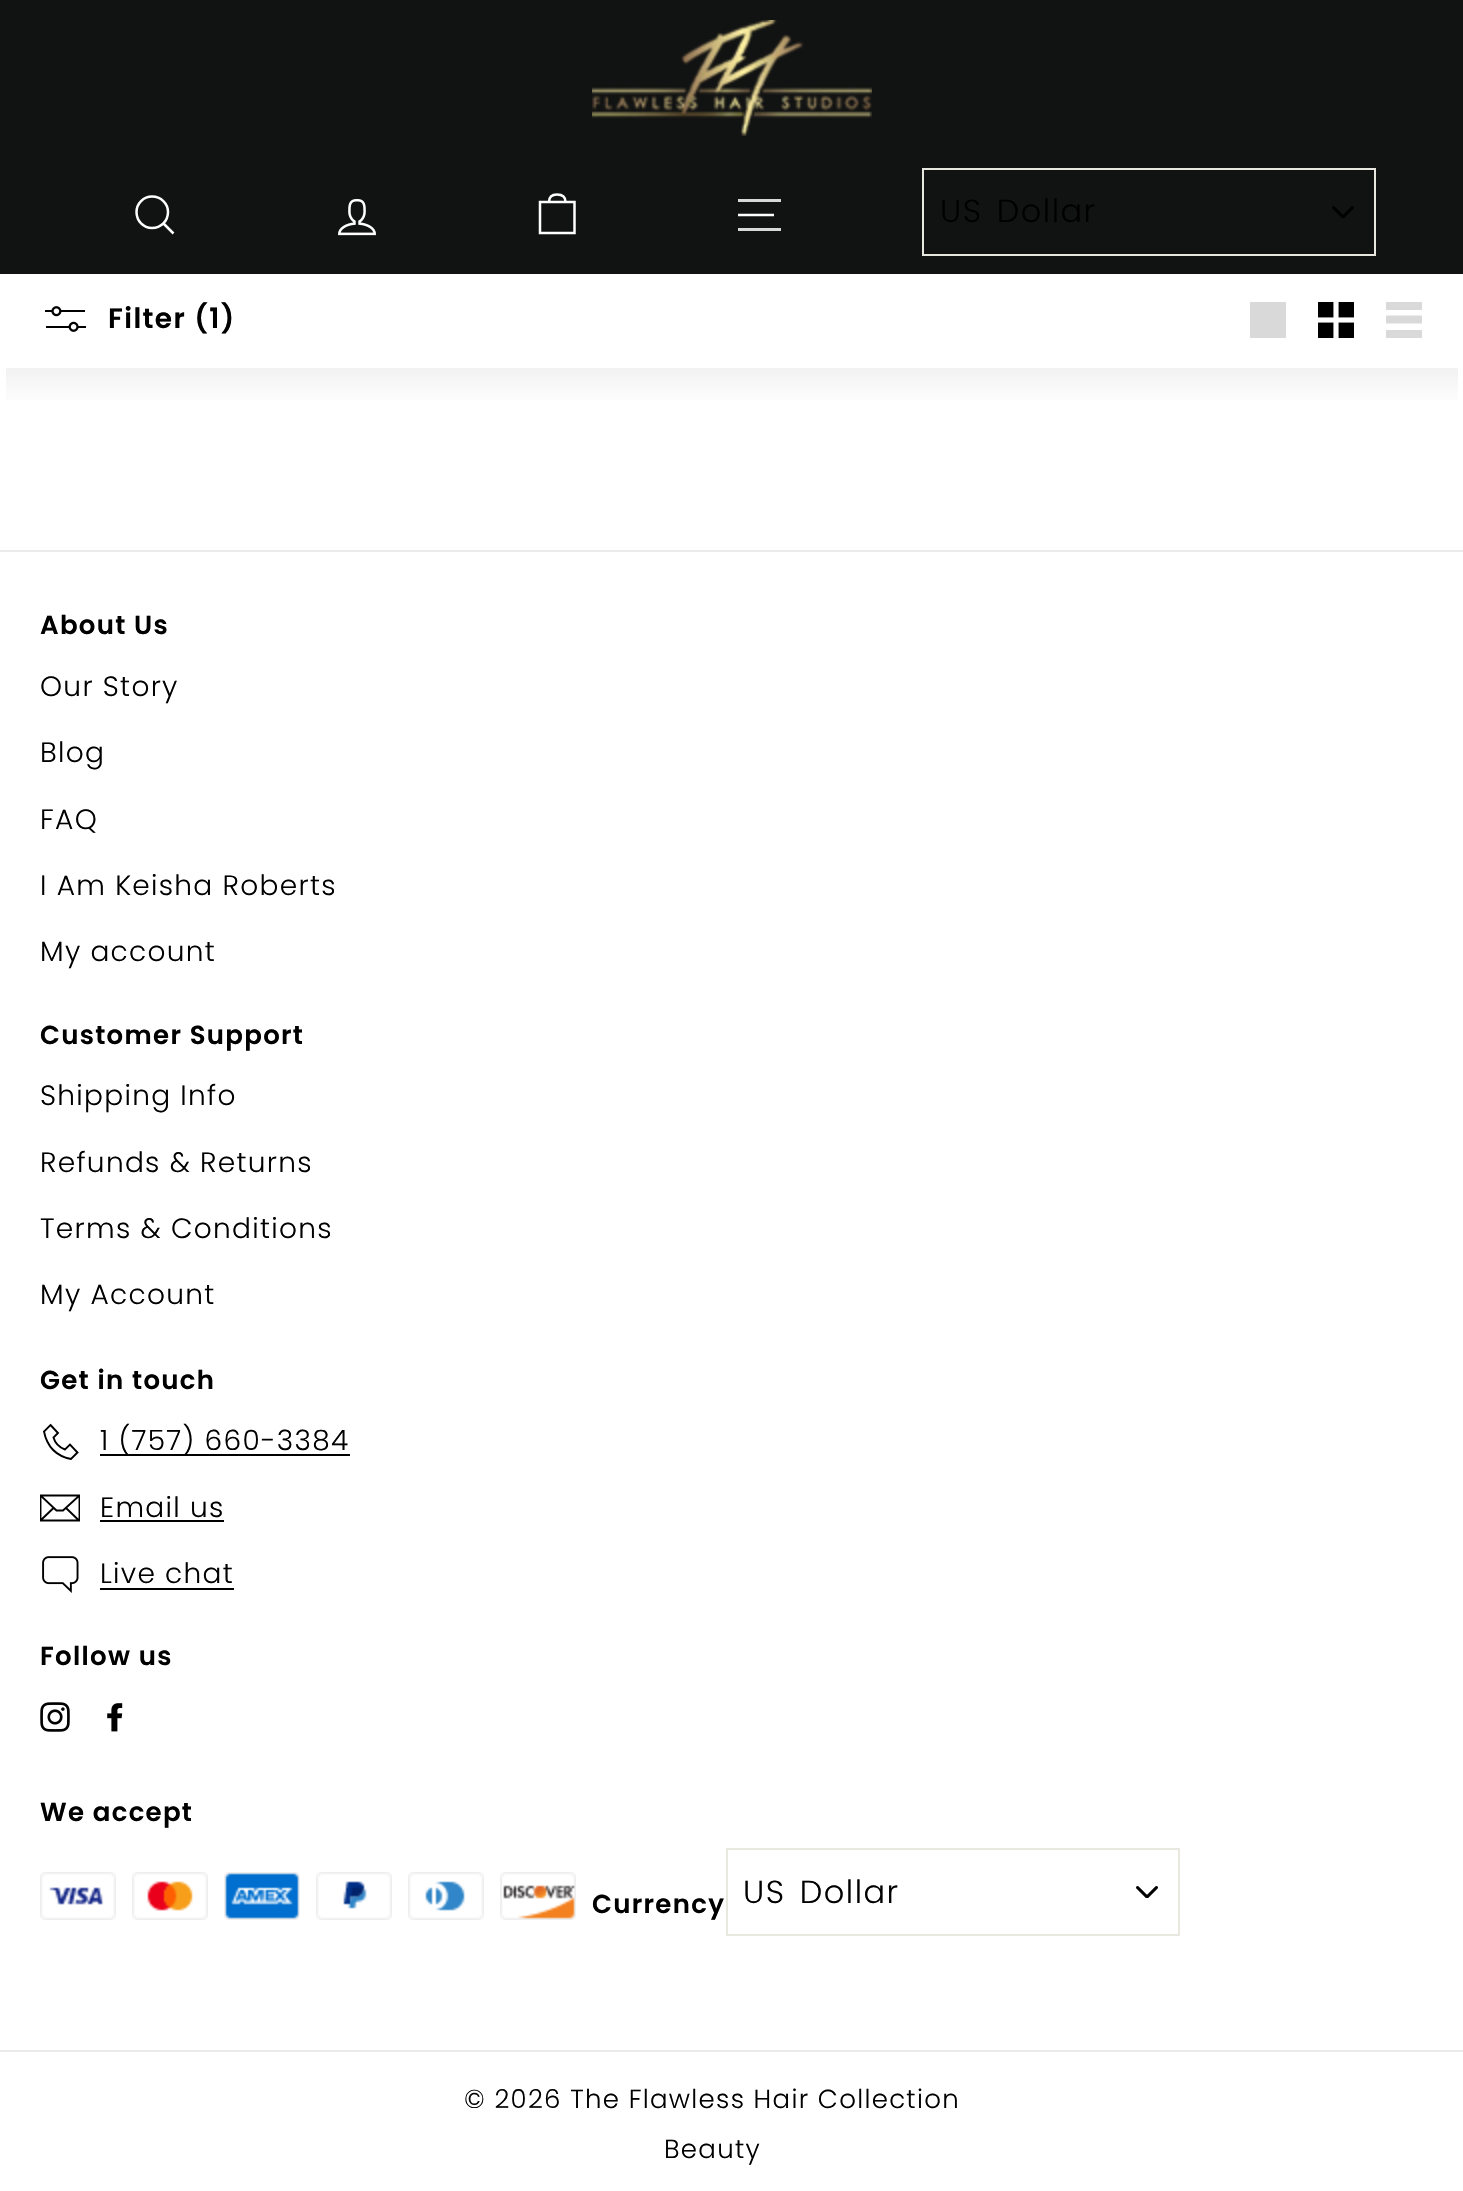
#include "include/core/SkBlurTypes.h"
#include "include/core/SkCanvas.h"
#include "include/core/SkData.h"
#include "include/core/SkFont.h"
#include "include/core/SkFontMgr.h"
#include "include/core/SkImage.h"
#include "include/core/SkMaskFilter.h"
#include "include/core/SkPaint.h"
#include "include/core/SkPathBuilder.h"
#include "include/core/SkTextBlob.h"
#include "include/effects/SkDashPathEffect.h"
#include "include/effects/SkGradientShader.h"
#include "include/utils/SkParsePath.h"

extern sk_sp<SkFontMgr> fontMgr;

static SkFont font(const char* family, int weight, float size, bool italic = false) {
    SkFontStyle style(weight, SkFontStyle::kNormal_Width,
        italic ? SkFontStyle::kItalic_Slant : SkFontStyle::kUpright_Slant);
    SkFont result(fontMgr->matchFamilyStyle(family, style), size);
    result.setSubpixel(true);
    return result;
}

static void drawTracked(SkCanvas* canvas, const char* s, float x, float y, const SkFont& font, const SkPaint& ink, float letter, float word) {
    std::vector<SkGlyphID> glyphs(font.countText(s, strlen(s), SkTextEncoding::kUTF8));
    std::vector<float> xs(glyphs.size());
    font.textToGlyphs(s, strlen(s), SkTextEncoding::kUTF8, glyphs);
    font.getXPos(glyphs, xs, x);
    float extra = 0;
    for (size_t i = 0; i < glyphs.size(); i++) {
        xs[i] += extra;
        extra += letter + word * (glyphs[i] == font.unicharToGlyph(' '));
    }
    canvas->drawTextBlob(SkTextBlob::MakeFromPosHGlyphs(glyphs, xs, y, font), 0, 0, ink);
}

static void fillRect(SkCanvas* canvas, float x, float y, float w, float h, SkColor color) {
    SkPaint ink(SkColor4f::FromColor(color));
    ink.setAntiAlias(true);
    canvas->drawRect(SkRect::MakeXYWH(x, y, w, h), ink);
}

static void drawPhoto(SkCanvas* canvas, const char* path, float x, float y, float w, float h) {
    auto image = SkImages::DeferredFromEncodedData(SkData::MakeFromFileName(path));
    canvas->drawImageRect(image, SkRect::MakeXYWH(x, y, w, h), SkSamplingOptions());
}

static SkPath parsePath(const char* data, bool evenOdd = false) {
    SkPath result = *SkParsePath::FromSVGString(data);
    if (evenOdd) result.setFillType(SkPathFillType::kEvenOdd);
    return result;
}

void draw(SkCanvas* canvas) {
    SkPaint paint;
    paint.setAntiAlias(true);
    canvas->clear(0xFFFFFFFF);
    fillRect(canvas, 0, 0, 1463, 274, 0xFF111212);
    drawPhoto(canvas, "assets/img1.png", 592, 20, 280, 116);
    paint.setStroke(true);
    paint.setStrokeWidth(2.5f);
    paint.setColor(0xFFFFFFFF);
    canvas->drawPath(parsePath("M168 212C168 221 161 228 152 228C143.5 228 136.5 221 136.5 212C136.5 203.5 143.5 196.5 152 196.5C161 196.5 168 203.5 168 212ZM173.5 233.5L163.5 223.5"), paint);
    drawPhoto(canvas, "assets/img2.png", 338, 198, 38, 38);
    canvas->drawPath(parsePath("M549 202C549 196 552.5 194.5 557 194.5C562 194.5 565.5 196 565.5 202M540 202H574.5V233H540Z"), paint);
    fillRect(canvas, 738, 199, 43, 3, 0xFFD7D8D8);
    canvas->drawPath(parsePath("M738 215H774"), paint);
    fillRect(canvas, 738, 228, 43, 3, 0xFFD7D8D8);
    drawPhoto(canvas, "assets/img3.png", 1332, 206, 22, 12);
    paint.setStrokeWidth(2);
    paint.setColor(0xFFE8E8E1);
    canvas->drawRect(SkRect::MakeXYWH(923, 169, 452, 86), paint);
    SkFont font1 = font("Poppins", 300, 32);
    paint.setStroke(false);
    paint.setColor(0xFF000000);
    drawTracked(canvas, "US Dollar", 940, 222, font1, paint, 1.5f, 4);
    drawPhoto(canvas, "assets/img4.png", 45, 306, 41, 26);
    SkFont font2 = font("Poppins", 600, 28);
    drawTracked(canvas, "Filter (1)", 108, 328, font2, paint, 1.4f, 0);
    fillRect(canvas, 1250, 302, 36, 36, 0xFFD9D9D9);
    drawPhoto(canvas, "assets/img5.png", 1318, 302, 36, 36);
    paint.setColor(0xFFD9D9D9);
    canvas->drawPath(parsePath("M1386 302H1422V310H1386ZM1386 315.5H1422V323.5H1386ZM1386 330H1422V338H1386Z"), paint);
    {
        const SkColor colors[] = {0xFFF2F2F2, 0xFFFFFFFF};
        const float stops[] = {0, 1};
        const SkPoint ends[] = {{732, 368}, {732, 408}};
        paint.setShader(SkGradientShader::MakeLinear(ends, colors, stops, 2, SkTileMode::kClamp));
        paint.setAlpha(255);
    }
    canvas->drawRect(SkRect::MakeXYWH(6, 368, 1452, 32), paint);
    fillRect(canvas, 0, 550, 1463, 2, 0xFFECEBEB);
    SkFont font3 = font("Poppins", 600, 26);
    paint.setShader(nullptr);
    paint.setColor(0xFF000000);
    drawTracked(canvas, "About Us", 40, 634, font3, paint, 1.3f, 0);
    SkFont font4 = font("Poppins", 300, 28);
    drawTracked(canvas, "Our Story", 40, 696, font4, paint, 1.3f, 0);
    drawTracked(canvas, "Blog", 40, 762, font4, paint, 1.3f, 0);
    drawTracked(canvas, "FAQ", 40, 829, font4, paint, 1.3f, 0);
    drawTracked(canvas, "I Am Keisha Roberts", 40, 895, font4, paint, 1.3f, 0);
    drawTracked(canvas, "My account", 40, 961, font4, paint, 1.3f, 0);
    drawTracked(canvas, "Customer Support", 40, 1044, font3, paint, 1.3f, 0);
    drawTracked(canvas, "Shipping Info", 40, 1105, font4, paint, 1.3f, 0);
    drawTracked(canvas, "Refunds & Returns", 40, 1172, font4, paint, 1.3f, 0);
    drawTracked(canvas, "Terms & Conditions", 40, 1238, font4, paint, 1.3f, 0);
    drawTracked(canvas, "My Account", 40, 1304, font4, paint, 1.3f, 0);
    drawTracked(canvas, "Get in touch", 40, 1389, font3, paint, 1.3f, 0);
    paint.setStroke(true);
    paint.setStrokeWidth(1.9f);
    canvas->drawPath(parsePath("M50.5 1425L58 1433L53.5 1437.5C55 1443 58.5 1447 65 1449.5L70 1444.5L77.5 1452.5L71 1459C56 1456 47 1446.5 44 1431.5Z"), paint);
    fillRect(canvas, 100, 1454, 250, 2, 0xFF000000);
    paint.setStroke(false);
    drawTracked(canvas, "1 (757) 660-3384", 100, 1450, font4, paint, 1.3f, 0);
    canvas->save();
    canvas->clipRect(SkRect::MakeXYWH(40, 1488, 40, 40));
    paint.setStroke(true);
    canvas->drawPath(parsePath("M79.5 1520.5H40.5V1495.5H79.5ZM40.5 1495.5L56.5 1510.5H63L79.5 1495.5M53.5 1508L41 1520M79 1520.5L66 1508"), paint);
    canvas->restore();
    paint.setStroke(false);
    drawTracked(canvas, "Email us", 100, 1517, font4, paint, 1.3f, 0);
    fillRect(canvas, 100, 1520, 124, 2, 0xFF000000);
    drawPhoto(canvas, "assets/img6.png", 42, 1556, 37, 37);
    drawTracked(canvas, "Live chat", 100, 1583, font4, paint, 1.3f, 0);
    fillRect(canvas, 100, 1588, 134, 2, 0xFF000000);
    drawTracked(canvas, "Follow us", 40, 1665, font3, paint, 1.3f, 0);
    drawPhoto(canvas, "assets/img7.png", 40, 1702, 30, 30);
    drawPhoto(canvas, "assets/img8.png", 107, 1703, 16, 29);
    drawTracked(canvas, "We accept", 40, 1821, font3, paint, 1.3f, 0);
    drawPhoto(canvas, "assets/img9.png", 40, 1872, 76, 48);
    drawPhoto(canvas, "assets/img10.png", 132, 1872, 76, 48);
    drawPhoto(canvas, "assets/img11.png", 224, 1872, 76, 48);
    drawPhoto(canvas, "assets/img12.png", 316, 1872, 76, 48);
    drawPhoto(canvas, "assets/img13.png", 408, 1872, 76, 48);
    drawPhoto(canvas, "assets/img14.png", 500, 1872, 76, 48);
    drawPhoto(canvas, "assets/img15.png", 1136, 1886, 22, 12);
    paint.setStroke(true);
    paint.setStrokeWidth(2);
    paint.setColor(0xFFE8E8E1);
    canvas->drawRect(SkRect::MakeXYWH(727, 1849, 452, 86), paint);
    paint.setStroke(false);
    paint.setColor(0xFF000000);
    drawTracked(canvas, "US Dollar", 743, 1903, font1, paint, 1.5f, 4);
    drawTracked(canvas, "Currency", 592, 1913, font3, paint, 1.3f, 0);
    fillRect(canvas, 0, 2050, 1463, 2, 0xFFECEBEB);
    SkFont font5 = font("Poppins", 300, 26);
    drawTracked(canvas, "© 2026 The Flawless Hair Collection", 464, 2108, font5, paint, 1.3f, 0);
    drawTracked(canvas, "Beauty", 664, 2158, font5, paint, 1.3f, 0);
}
